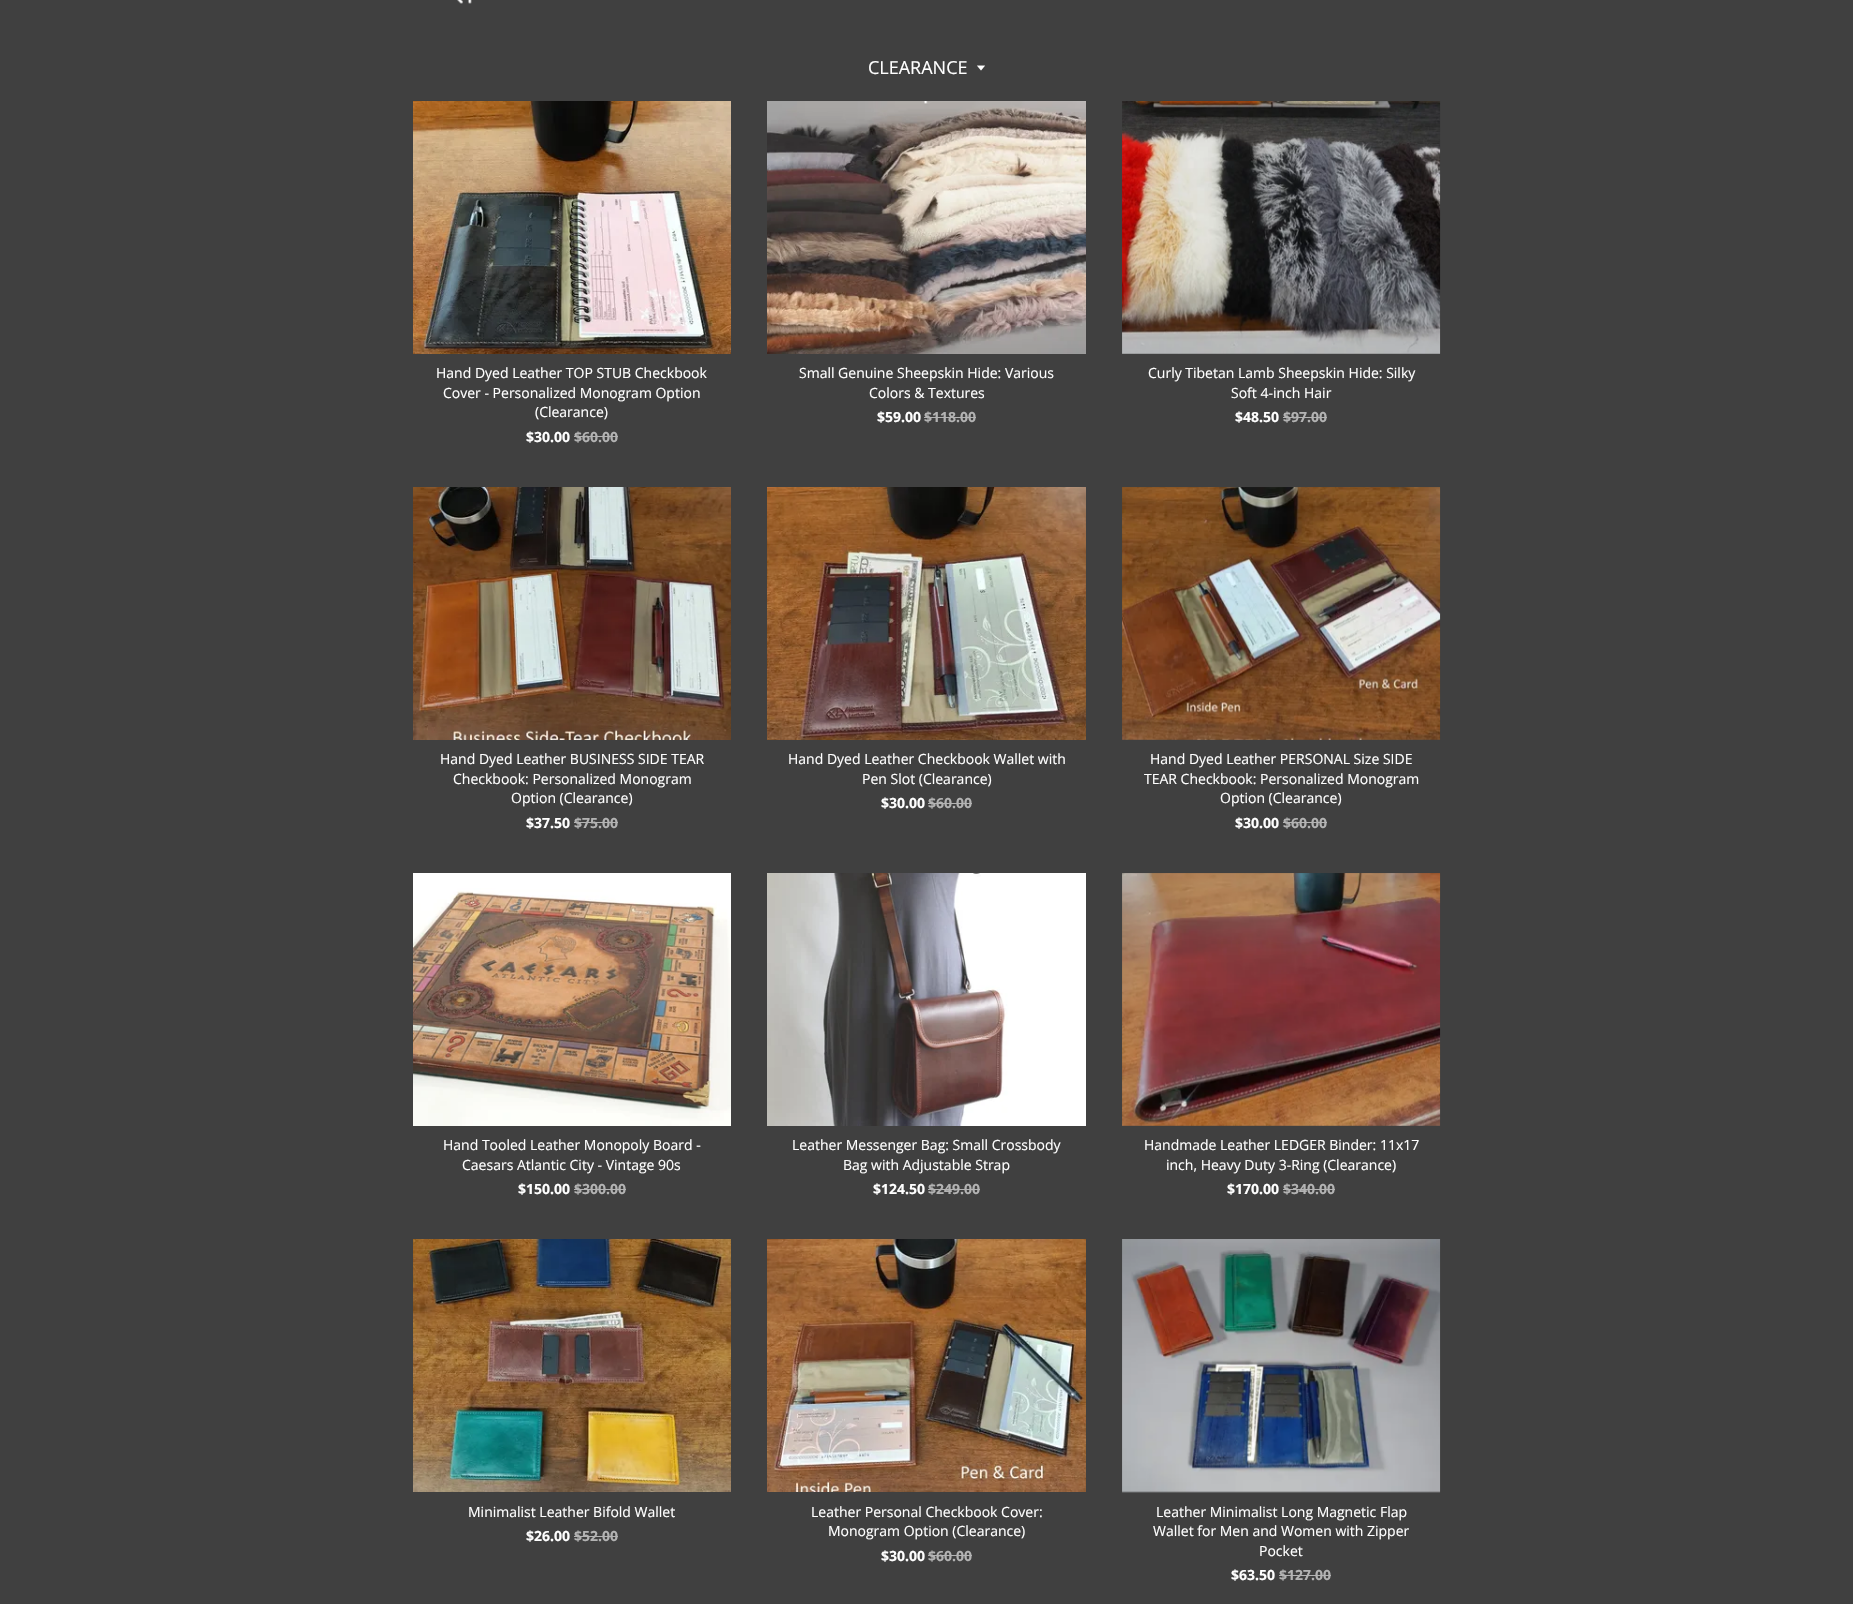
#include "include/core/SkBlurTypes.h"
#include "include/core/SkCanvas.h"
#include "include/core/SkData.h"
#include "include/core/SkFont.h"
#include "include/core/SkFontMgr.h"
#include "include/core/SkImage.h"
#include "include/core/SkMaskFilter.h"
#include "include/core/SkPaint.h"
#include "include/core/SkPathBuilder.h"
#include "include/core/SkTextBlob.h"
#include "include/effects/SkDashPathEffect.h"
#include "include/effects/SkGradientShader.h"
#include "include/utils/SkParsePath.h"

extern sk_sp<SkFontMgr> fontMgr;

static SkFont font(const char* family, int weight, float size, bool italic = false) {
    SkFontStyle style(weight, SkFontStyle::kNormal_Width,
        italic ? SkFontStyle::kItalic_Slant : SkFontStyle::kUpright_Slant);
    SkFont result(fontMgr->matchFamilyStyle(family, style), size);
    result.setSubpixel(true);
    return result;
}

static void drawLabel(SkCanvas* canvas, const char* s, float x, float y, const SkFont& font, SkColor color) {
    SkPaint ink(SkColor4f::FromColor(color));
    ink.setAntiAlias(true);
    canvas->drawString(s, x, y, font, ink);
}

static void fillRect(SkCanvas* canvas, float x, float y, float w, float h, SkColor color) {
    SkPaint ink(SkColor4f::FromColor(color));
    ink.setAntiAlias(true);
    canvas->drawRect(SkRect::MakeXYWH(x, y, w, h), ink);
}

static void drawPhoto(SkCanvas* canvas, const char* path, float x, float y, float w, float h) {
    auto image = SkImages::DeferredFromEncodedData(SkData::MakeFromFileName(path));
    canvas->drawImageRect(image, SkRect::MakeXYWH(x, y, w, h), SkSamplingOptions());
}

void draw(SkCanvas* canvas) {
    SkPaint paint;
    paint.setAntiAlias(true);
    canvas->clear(0xFF404040);
    drawPhoto(canvas, "assets/img1.png", 457, 0, 15, 4);
    SkFont font1 = font("Open Sans", 400, 18);
    drawLabel(canvas, "CLEARANCE", 868, 74, font1, 0xFFFFFFFF);
    drawPhoto(canvas, "assets/img2.png", 977, 65, 8, 6);
    drawPhoto(canvas, "assets/img3.png", 413, 101, 318, 253);
    SkFont font2 = font("Open Sans", 400, 14);
    drawLabel(canvas, "Hand Dyed Leather TOP STUB Checkbook", 436, 378, font2, 0xFFFFFFFF);
    drawLabel(canvas, "Cover - Personalized Monogram Option", 443, 398, font2, 0xFFFFFFFF);
    drawLabel(canvas, "(Clearance)", 535, 417, font2, 0xFFFFFFFF);
    SkFont font3 = font("Open Sans", 700, 14);
    drawLabel(canvas, "$30.00", 526, 442, font3, 0xFFFFFFFF);
    drawLabel(canvas, "$60.00", 574, 442, font3, 0xFFB3B3B3);
    fillRect(canvas, 574, 436, 44, 1, 0xFFB3B3B3);
    drawPhoto(canvas, "assets/img4.png", 767, 101, 319, 253);
    drawLabel(canvas, "Small Genuine Sheepskin Hide: Various", 799, 378, font2, 0xFFFFFFFF);
    drawLabel(canvas, "Colors & Textures", 869, 398, font2, 0xFFFFFFFF);
    drawLabel(canvas, "$59.00", 877, 422, font3, 0xFFFFFFFF);
    drawLabel(canvas, "$118.00", 924, 422, font3, 0xFFB3B3B3);
    fillRect(canvas, 924, 417, 52, 1, 0xFFB3B3B3);
    drawPhoto(canvas, "assets/img5.png", 1122, 101, 319, 253);
    drawLabel(canvas, "Curly Tibetan Lamb Sheepskin Hide: Silky", 1148, 378, font2, 0xFFFFFFFF);
    drawLabel(canvas, "Soft 4-inch Hair", 1231, 398, font2, 0xFFFFFFFF);
    drawLabel(canvas, "$48.50", 1235, 422, font3, 0xFFFFFFFF);
    drawLabel(canvas, "$97.00", 1283, 422, font3, 0xFFB3B3B3);
    fillRect(canvas, 1283, 417, 44, 1, 0xFFB3B3B3);
    drawPhoto(canvas, "assets/img6.png", 413, 487, 318, 253);
    drawLabel(canvas, "Hand Dyed Leather BUSINESS SIDE TEAR", 440, 764, font2, 0xFFFFFFFF);
    drawLabel(canvas, "Checkbook: Personalized Monogram", 453, 784, font2, 0xFFFFFFFF);
    drawLabel(canvas, "Option (Clearance)", 511, 803, font2, 0xFFFFFFFF);
    drawLabel(canvas, "$37.50", 526, 828, font3, 0xFFFFFFFF);
    drawLabel(canvas, "$75.00", 574, 828, font3, 0xFFB3B3B3);
    fillRect(canvas, 574, 822, 44, 1, 0xFFB3B3B3);
    drawPhoto(canvas, "assets/img7.png", 767, 487, 319, 253);
    drawLabel(canvas, "Hand Dyed Leather Checkbook Wallet with", 788, 764, font2, 0xFFFFFFFF);
    drawLabel(canvas, "Pen Slot (Clearance)", 862, 784, font2, 0xFFFFFFFF);
    drawLabel(canvas, "$30.00", 881, 808, font3, 0xFFFFFFFF);
    drawLabel(canvas, "$60.00", 928, 808, font3, 0xFFB3B3B3);
    fillRect(canvas, 928, 803, 44, 1, 0xFFB3B3B3);
    drawPhoto(canvas, "assets/img8.png", 1122, 487, 319, 253);
    drawLabel(canvas, "Hand Dyed Leather PERSONAL Size SIDE", 1150, 764, font2, 0xFFFFFFFF);
    drawLabel(canvas, "TEAR Checkbook: Personalized Monogram", 1144, 784, font2, 0xFFFFFFFF);
    drawLabel(canvas, "Option (Clearance)", 1220, 803, font2, 0xFFFFFFFF);
    drawLabel(canvas, "$30.00", 1235, 828, font3, 0xFFFFFFFF);
    drawLabel(canvas, "$60.00", 1283, 828, font3, 0xFFB3B3B3);
    fillRect(canvas, 1283, 822, 44, 1, 0xFFB3B3B3);
    drawPhoto(canvas, "assets/img9.png", 413, 873, 318, 253);
    drawLabel(canvas, "Hand Tooled Leather Monopoly Board -", 443, 1150, font2, 0xFFFFFFFF);
    drawLabel(canvas, "Caesars Atlantic City - Vintage 90s", 462, 1170, font2, 0xFFFFFFFF);
    drawLabel(canvas, "$150.00", 518, 1194, font3, 0xFFFFFFFF);
    drawLabel(canvas, "$300.00", 574, 1194, font3, 0xFFB3B3B3);
    fillRect(canvas, 574, 1189, 52, 1, 0xFFB3B3B3);
    drawPhoto(canvas, "assets/img10.png", 767, 873, 319, 253);
    drawLabel(canvas, "Leather Messenger Bag: Small Crossbody", 792, 1150, font2, 0xFFFFFFFF);
    drawLabel(canvas, "Bag with Adjustable Strap", 843, 1170, font2, 0xFFFFFFFF);
    drawLabel(canvas, "$124.50", 873, 1194, font3, 0xFFFFFFFF);
    drawLabel(canvas, "$249.00", 928, 1194, font3, 0xFFB3B3B3);
    fillRect(canvas, 928, 1189, 52, 1, 0xFFB3B3B3);
    drawPhoto(canvas, "assets/img11.png", 1122, 873, 319, 253);
    drawLabel(canvas, "Handmade Leather LEDGER Binder: 11x17", 1144, 1150, font2, 0xFFFFFFFF);
    drawLabel(canvas, "inch, Heavy Duty 3-Ring (Clearance)", 1166, 1170, font2, 0xFFFFFFFF);
    drawLabel(canvas, "$170.00", 1227, 1194, font3, 0xFFFFFFFF);
    drawLabel(canvas, "$340.00", 1283, 1194, font3, 0xFFB3B3B3);
    fillRect(canvas, 1283, 1189, 52, 1, 0xFFB3B3B3);
    drawPhoto(canvas, "assets/img12.png", 413, 1239, 318, 253);
    drawLabel(canvas, "Minimalist Leather Bifold Wallet", 468, 1517, font2, 0xFFFFFFFF);
    drawLabel(canvas, "$26.00", 526, 1541, font3, 0xFFFFFFFF);
    drawLabel(canvas, "$52.00", 574, 1541, font3, 0xFFB3B3B3);
    fillRect(canvas, 574, 1536, 44, 1, 0xFFB3B3B3);
    drawPhoto(canvas, "assets/img13.png", 767, 1239, 319, 253);
    drawLabel(canvas, "Leather Personal Checkbook Cover:", 811, 1517, font2, 0xFFFFFFFF);
    drawLabel(canvas, "Monogram Option (Clearance)", 828, 1536, font2, 0xFFFFFFFF);
    drawLabel(canvas, "$30.00", 881, 1561, font3, 0xFFFFFFFF);
    drawLabel(canvas, "$60.00", 928, 1561, font3, 0xFFB3B3B3);
    fillRect(canvas, 928, 1555, 44, 1, 0xFFB3B3B3);
    drawPhoto(canvas, "assets/img14.png", 1122, 1239, 319, 254);
    drawLabel(canvas, "Leather Minimalist Long Magnetic Flap", 1156, 1517, font2, 0xFFFFFFFF);
    drawLabel(canvas, "Wallet for Men and Women with Zipper", 1153, 1536, font2, 0xFFFFFFFF);
    drawLabel(canvas, "Pocket", 1259, 1556, font2, 0xFFFFFFFF);
    drawLabel(canvas, "$63.50", 1231, 1580, font3, 0xFFFFFFFF);
    drawLabel(canvas, "$127.00", 1279, 1580, font3, 0xFFB3B3B3);
    fillRect(canvas, 1279, 1575, 52, 1, 0xFFB3B3B3);
}
